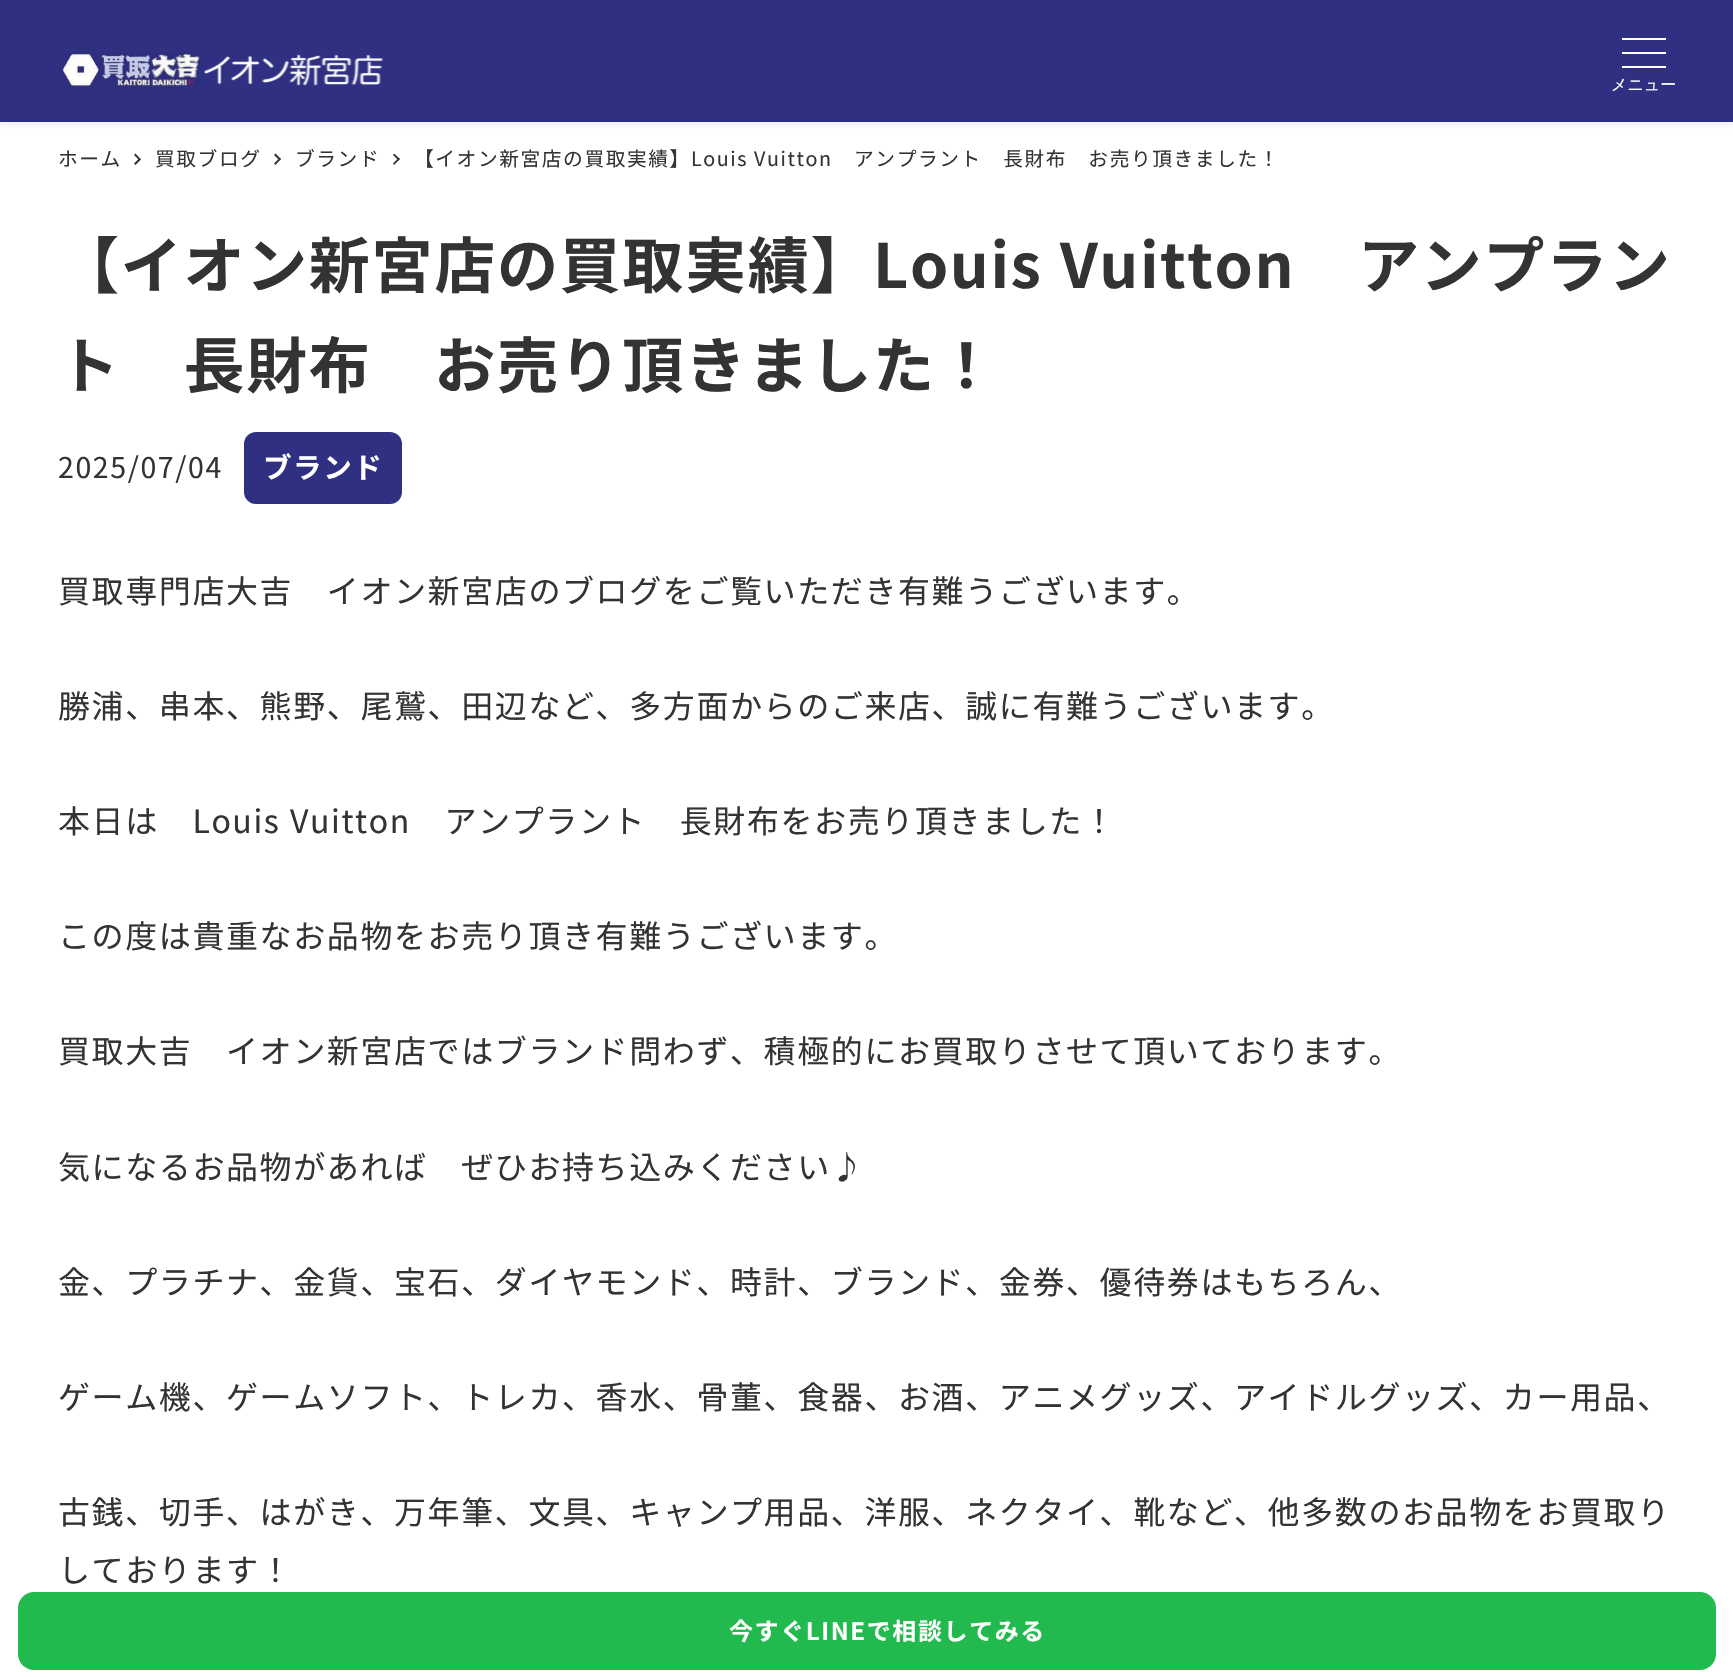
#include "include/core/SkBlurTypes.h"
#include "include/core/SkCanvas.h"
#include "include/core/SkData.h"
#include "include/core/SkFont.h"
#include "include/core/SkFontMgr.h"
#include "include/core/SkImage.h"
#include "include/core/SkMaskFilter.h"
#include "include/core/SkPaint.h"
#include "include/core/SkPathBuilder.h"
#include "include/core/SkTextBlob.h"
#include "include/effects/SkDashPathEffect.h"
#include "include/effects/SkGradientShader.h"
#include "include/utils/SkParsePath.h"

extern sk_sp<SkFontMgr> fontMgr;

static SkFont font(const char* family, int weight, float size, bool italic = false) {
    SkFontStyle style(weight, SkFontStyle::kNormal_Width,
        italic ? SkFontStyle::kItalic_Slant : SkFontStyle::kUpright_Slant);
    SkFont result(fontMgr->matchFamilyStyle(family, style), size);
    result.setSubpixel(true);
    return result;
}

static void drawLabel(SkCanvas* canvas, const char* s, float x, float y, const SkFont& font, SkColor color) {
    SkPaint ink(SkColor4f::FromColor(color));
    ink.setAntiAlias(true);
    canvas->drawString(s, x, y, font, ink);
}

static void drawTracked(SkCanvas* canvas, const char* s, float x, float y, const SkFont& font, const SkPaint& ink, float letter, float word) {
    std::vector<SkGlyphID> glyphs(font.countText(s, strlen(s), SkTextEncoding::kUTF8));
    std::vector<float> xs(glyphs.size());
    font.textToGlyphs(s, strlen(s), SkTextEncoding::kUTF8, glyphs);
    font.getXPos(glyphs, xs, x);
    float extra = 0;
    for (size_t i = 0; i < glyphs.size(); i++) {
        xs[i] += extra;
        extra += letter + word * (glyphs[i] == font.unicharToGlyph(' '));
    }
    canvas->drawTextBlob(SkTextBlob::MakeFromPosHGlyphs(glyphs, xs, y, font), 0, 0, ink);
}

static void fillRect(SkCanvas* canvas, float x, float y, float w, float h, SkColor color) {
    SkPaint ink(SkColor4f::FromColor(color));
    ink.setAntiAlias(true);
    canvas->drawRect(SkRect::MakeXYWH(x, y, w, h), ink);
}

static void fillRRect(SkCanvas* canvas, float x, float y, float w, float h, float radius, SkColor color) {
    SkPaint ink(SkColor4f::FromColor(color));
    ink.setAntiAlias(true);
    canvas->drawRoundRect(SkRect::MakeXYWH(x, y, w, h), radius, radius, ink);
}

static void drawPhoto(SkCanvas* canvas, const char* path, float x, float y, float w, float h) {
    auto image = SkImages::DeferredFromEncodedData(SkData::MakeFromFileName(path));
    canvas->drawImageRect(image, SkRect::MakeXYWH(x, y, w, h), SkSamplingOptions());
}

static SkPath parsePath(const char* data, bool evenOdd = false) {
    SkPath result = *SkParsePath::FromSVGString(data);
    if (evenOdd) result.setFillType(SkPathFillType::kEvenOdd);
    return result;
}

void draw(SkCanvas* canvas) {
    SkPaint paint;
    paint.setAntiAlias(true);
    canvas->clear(0xFFFFFFFF);
    paint.setColor(0x0D000000);
    paint.setMaskFilter(SkMaskFilter::MakeBlur(kNormal_SkBlurStyle, 2));
    canvas->drawRect(SkRect::MakeXYWH(-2, 0, 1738, 126), paint);
    paint.setMaskFilter(nullptr);
    fillRect(canvas, 0, 0, 1733, 122, 0xFF2F3082);
    drawPhoto(canvas, "assets/img1.png", 62, 51, 322, 38);
    fillRect(canvas, 1622, 38, 44, 2, 0xFFFFFFFF);
    fillRect(canvas, 1622, 52, 44, 2, 0xFFFFFFFF);
    fillRect(canvas, 1622, 66, 44, 2, 0xFFFFFFFF);
    SkFont font1 = font("WenQuanYi Zen Hei", 500, 16);
    drawLabel(canvas, "メニュー", 1611, 90, font1, 0xFFFFFFFF);
    SkFont font2 = font("Noto Sans JP", 400, 19.7f);
    paint.setColor(0xFF333333);
    drawTracked(canvas, "ホーム", 58, 166, font2, paint, 1.6f, 0);
    canvas->drawPath(parsePath("M135.5 153.5L141 159.5L139.5 160.5L134 155Z"), paint);
    canvas->drawPath(parsePath("M139.5 158L141 159.5L135.5 165L134 163.5Z"), paint);
    drawTracked(canvas, "買取ブログ", 155, 166, font2, paint, 1.6f, 0);
    canvas->drawPath(parsePath("M275.5 153.5L281 159L279.5 160.5L274 155Z"), paint);
    canvas->drawPath(parsePath("M279.5 158L281 159L275.5 165L274 163.5Z"), paint);
    drawTracked(canvas, "ブランド", 295, 166, font2, paint, 1.6f, 0);
    canvas->drawPath(parsePath("M394 153.5L400 159L398.5 160.5L393 155Z"), paint);
    canvas->drawPath(parsePath("M398.5 158L400 159L394 165L393 163.5Z"), paint);
    drawTracked(canvas, "【イオン新宮店の買取実績】Louis", 414, 166, font2, paint, 1.6f, 0);
    drawTracked(canvas, "Vuitton　アンプラント　長財布　お売り頂きました！", 754, 166, font2, paint, 1.6f, 0);
    SkFont font3 = font("Noto Sans JP", 700, 61.1f);
    drawTracked(canvas, "【イオン新宮店の買取実績】Louis", 58, 288, font3, paint, 1.6f, 0);
    drawTracked(canvas, "Vuitton　アンプラン", 1060, 288, font3, paint, 1.6f, 0);
    drawTracked(canvas, "ト　長財布　お売り頂きました！", 58, 388, font3, paint, 1.6f, 0);
    SkFont font4 = font("Noto Sans JP", 400, 28.5f);
    drawTracked(canvas, "2025/07/04", 58, 478, font4, paint, 1.6f, 0);
    fillRRect(canvas, 244, 432, 158, 72, 12, 0xFF2F3082);
    SkFont font5 = font("Noto Sans JP", 700, 28.5f);
    paint.setColor(0xFFFFFFFF);
    drawTracked(canvas, "ブランド", 263, 478, font5, paint, 1.6f, 0);
    SkFont font6 = font("Noto Sans JP", 400, 32);
    paint.setColor(0xFF333333);
    drawTracked(canvas, "買取専門店大吉　イオン新宮店のブログをご覧いただき有難うございます。", 58, 603, font6, paint, 1.6f, 0);
    drawTracked(canvas, "勝浦、串本、熊野、尾鷲、田辺など、多方面からのご来店、誠に有難うございます。", 58, 718, font6, paint, 1.6f, 0);
    drawTracked(canvas, "本日は　Louis", 58, 833, font6, paint, 1.6f, 0);
    drawTracked(canvas, "Vuitton　アンプラント　長財布をお売り頂きました！", 290, 833, font6, paint, 1.6f, 0);
    drawTracked(canvas, "この度は貴重なお品物をお売り頂き有難うございます。", 58, 948, font6, paint, 1.6f, 0);
    drawTracked(canvas, "買取大吉　イオン新宮店ではブランド問わず、積極的にお買取りさせて頂いております。", 58, 1063, font6, paint, 1.6f, 0);
    drawTracked(canvas, "気になるお品物があれば　ぜひお持ち込みください♪", 58, 1179, font6, paint, 1.6f, 0);
    drawTracked(canvas, "金、プラチナ、金貨、宝石、ダイヤモンド、時計、ブランド、金券、優待券はもちろん、", 58, 1294, font6, paint, 1.6f, 0);
    drawTracked(canvas, "ゲーム機、ゲームソフト、トレカ、香水、骨董、食器、お酒、アニメグッズ、アイドルグッズ、カー用品、", 58, 1409, font6, paint, 1.6f, 0);
    drawTracked(canvas, "古銭、切手、はがき、万年筆、文具、キャンプ用品、洋服、ネクタイ、靴など、他多数のお品物をお買取り", 58, 1524, font6, paint, 1.6f, 0);
    drawTracked(canvas, "しております！", 58, 1582, font6, paint, 1.6f, 0);
    fillRRect(canvas, 18, 1592, 1698, 78, 16, 0xFF22BA4F);
    SkFont font7 = font("Noto Sans JP", 700, 24);
    paint.setColor(0xFFFFFFFF);
    drawTracked(canvas, "今すぐLINEで相談してみる", 729, 1640, font7, paint, 1.6f, 0);
}
